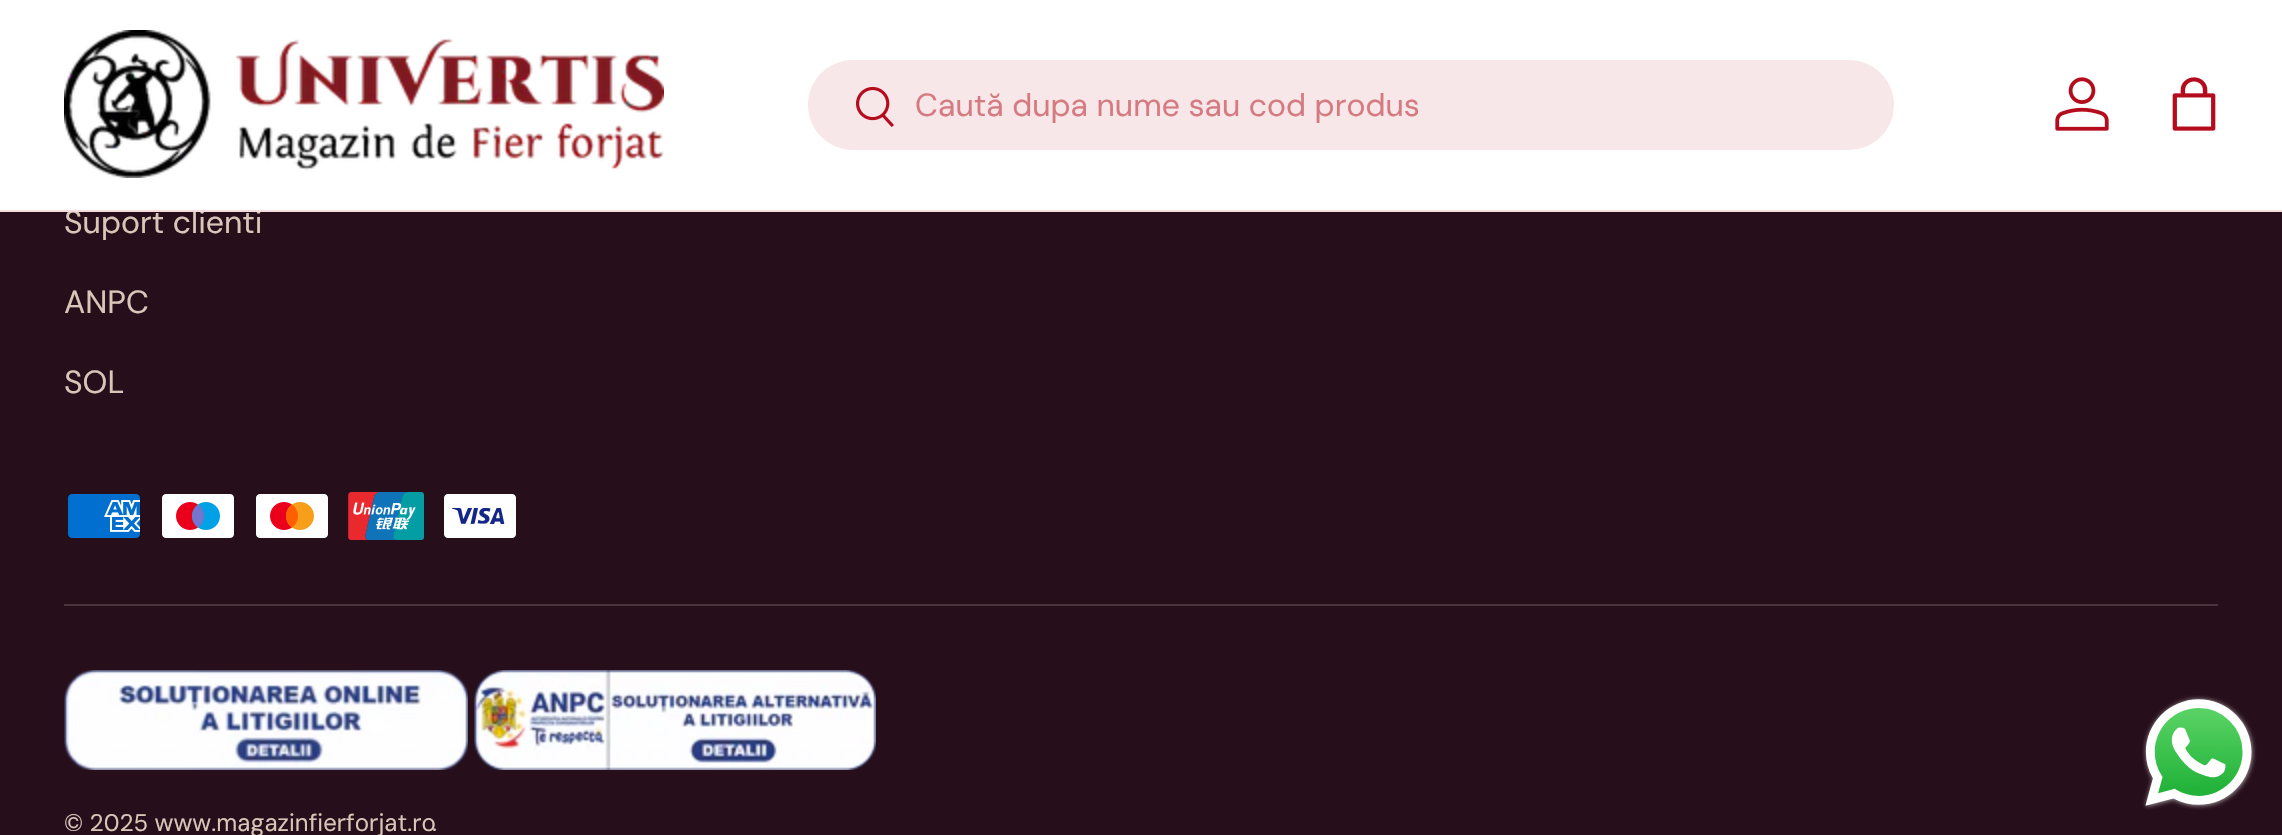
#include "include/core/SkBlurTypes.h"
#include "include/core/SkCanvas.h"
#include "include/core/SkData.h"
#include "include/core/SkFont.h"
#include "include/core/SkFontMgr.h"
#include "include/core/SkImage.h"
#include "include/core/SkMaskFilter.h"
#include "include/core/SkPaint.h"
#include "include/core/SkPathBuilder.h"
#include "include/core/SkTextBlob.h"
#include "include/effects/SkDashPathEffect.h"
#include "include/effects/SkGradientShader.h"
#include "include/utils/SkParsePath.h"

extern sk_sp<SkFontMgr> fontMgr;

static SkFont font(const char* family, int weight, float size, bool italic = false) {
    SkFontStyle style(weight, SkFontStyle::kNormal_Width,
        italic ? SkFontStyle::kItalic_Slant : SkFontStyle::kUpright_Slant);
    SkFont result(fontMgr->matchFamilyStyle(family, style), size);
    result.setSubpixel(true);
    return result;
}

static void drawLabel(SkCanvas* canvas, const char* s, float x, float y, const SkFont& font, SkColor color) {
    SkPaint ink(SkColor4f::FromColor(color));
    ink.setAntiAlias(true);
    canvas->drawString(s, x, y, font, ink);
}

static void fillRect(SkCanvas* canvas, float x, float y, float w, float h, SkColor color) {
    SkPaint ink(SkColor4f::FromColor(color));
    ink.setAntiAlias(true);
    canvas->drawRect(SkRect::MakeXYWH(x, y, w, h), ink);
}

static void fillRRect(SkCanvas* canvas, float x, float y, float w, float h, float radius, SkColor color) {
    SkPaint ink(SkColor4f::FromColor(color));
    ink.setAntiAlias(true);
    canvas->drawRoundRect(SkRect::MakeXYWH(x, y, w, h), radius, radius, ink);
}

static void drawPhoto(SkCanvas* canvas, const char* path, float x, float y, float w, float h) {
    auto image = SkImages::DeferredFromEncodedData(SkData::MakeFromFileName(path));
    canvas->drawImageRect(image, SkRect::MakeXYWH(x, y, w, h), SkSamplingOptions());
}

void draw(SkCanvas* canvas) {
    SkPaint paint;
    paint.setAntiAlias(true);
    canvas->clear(0xFF260E1B);
    SkFont font1 = font("DM Sans", 400, 32);
    drawLabel(canvas, "Suport clienti", 64, 233, font1, 0xFFD8C6B8);
    fillRect(canvas, 0, 0, 2282, 210, 0xFFFFFFFF);
    fillRect(canvas, 0, 210, 2282, 2, 0xFFF4DBDD);
    drawPhoto(canvas, "assets/img1.png", 64, 30, 600, 148);
    fillRRect(canvas, 808, 60, 1086, 90, 45, 0xFFF8E7E8);
    drawPhoto(canvas, "assets/img2.png", 856, 86, 38, 41);
    drawLabel(canvas, "Caută dupa nume sau cod produs", 915, 116, font1, 0xFFD67A82);
    drawPhoto(canvas, "assets/img3.png", 2055, 77, 54, 54);
    drawPhoto(canvas, "assets/img4.png", 2172, 77, 44, 54);
    drawLabel(canvas, "ANPC", 64, 313, font1, 0xFFD8C6B8);
    drawLabel(canvas, "SOL", 64, 393, font1, 0xFFD8C6B8);
    drawPhoto(canvas, "assets/img5.png", 68, 494, 72, 44);
    drawPhoto(canvas, "assets/img6.png", 162, 494, 72, 44);
    drawPhoto(canvas, "assets/img7.png", 256, 494, 72, 44);
    drawPhoto(canvas, "assets/img8.png", 348, 492, 76, 48);
    drawPhoto(canvas, "assets/img9.png", 444, 494, 72, 44);
    fillRect(canvas, 64, 604, 2154, 2, 0xFF4A333A);
    drawPhoto(canvas, "assets/img10.png", 64, 670, 404, 100);
    drawPhoto(canvas, "assets/img11.png", 474, 670, 402, 100);
    SkFont font2 = font("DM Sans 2", 400, 24);
    drawLabel(canvas, "© 2025 www.magazinfierforjat.ro", 64, 831, font2, 0xFFD8C6B8);
    drawLabel(canvas, ".", 432, 831, font2, 0xFFD8C6B8);
    drawPhoto(canvas, "assets/img12.png", 2142, 695, 115, 115);
}
